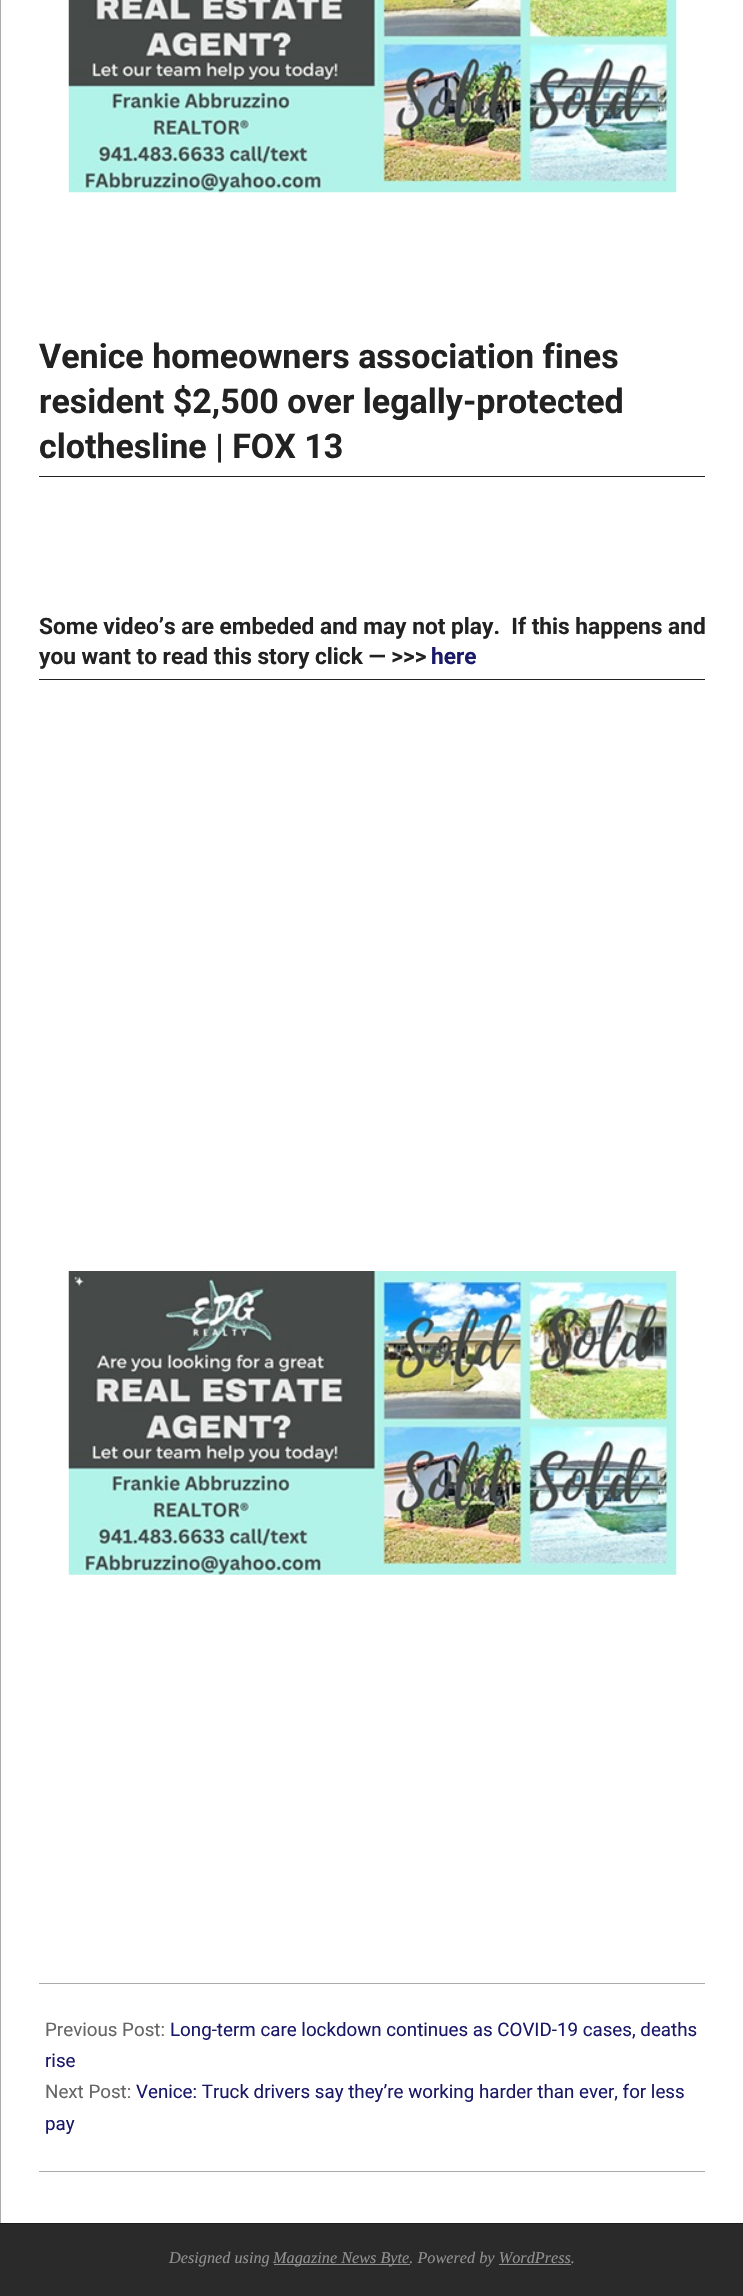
#include "include/core/SkBlurTypes.h"
#include "include/core/SkCanvas.h"
#include "include/core/SkData.h"
#include "include/core/SkFont.h"
#include "include/core/SkFontMgr.h"
#include "include/core/SkImage.h"
#include "include/core/SkMaskFilter.h"
#include "include/core/SkPaint.h"
#include "include/core/SkPathBuilder.h"
#include "include/core/SkTextBlob.h"
#include "include/effects/SkDashPathEffect.h"
#include "include/effects/SkGradientShader.h"
#include "include/utils/SkParsePath.h"

extern sk_sp<SkFontMgr> fontMgr;

static SkFont font(const char* family, int weight, float size, bool italic = false) {
    SkFontStyle style(weight, SkFontStyle::kNormal_Width,
        italic ? SkFontStyle::kItalic_Slant : SkFontStyle::kUpright_Slant);
    SkFont result(fontMgr->matchFamilyStyle(family, style), size);
    result.setSubpixel(true);
    return result;
}

static void drawLabel(SkCanvas* canvas, const char* s, float x, float y, const SkFont& font, SkColor color) {
    SkPaint ink(SkColor4f::FromColor(color));
    ink.setAntiAlias(true);
    canvas->drawString(s, x, y, font, ink);
}

static void fillRect(SkCanvas* canvas, float x, float y, float w, float h, SkColor color) {
    SkPaint ink(SkColor4f::FromColor(color));
    ink.setAntiAlias(true);
    canvas->drawRect(SkRect::MakeXYWH(x, y, w, h), ink);
}

static void drawPhoto(SkCanvas* canvas, const char* path, float x, float y, float w, float h) {
    auto image = SkImages::DeferredFromEncodedData(SkData::MakeFromFileName(path));
    canvas->drawImageRect(image, SkRect::MakeXYWH(x, y, w, h), SkSamplingOptions());
}

void draw(SkCanvas* canvas) {
    SkPaint paint;
    paint.setAntiAlias(true);
    canvas->clear(0xFFFFFFFF);
    fillRect(canvas, 0, 0, 1, 2223, 0xFFABABAB);
    fillRect(canvas, 39, 1983, 666, 1, 0xFFABABAB);
    drawPhoto(canvas, "assets/img1.png", 68, 0, 609, 193);
    fillRect(canvas, 39, 476, 666, 1, 0xFF222222);
    SkFont font1 = font("Roboto", 700, 34);
    drawLabel(canvas, "Venice homeowners association fines", 39, 368, font1, 0xFF222222);
    drawLabel(canvas, "resident $2,500 over legally-protected", 39, 413, font1, 0xFF222222);
    drawLabel(canvas, "clothesline | FOX 13", 39, 458, font1, 0xFF222222);
    fillRect(canvas, 39, 679, 666, 1, 0xFF222222);
    SkFont font2 = font("Roboto", 700, 22.7f);
    drawLabel(canvas, "Some video’s are embeded and may not play.  If this happens and", 39, 634, font2, 0xFF222222);
    drawLabel(canvas, "you want to read this story click — >>>", 39, 664, font2, 0xFF222222);
    drawLabel(canvas, "here", 431, 664, font2, 0xFF1A1968);
    drawPhoto(canvas, "assets/img2.png", 68, 1271, 609, 304);
    fillRect(canvas, 39, 2171, 666, 1, 0xFFABABAB);
    SkFont font3 = font("Roboto", 400, 18.75f);
    drawLabel(canvas, "Previous Post:", 45, 2036, font3, 0xFF666666);
    drawLabel(canvas, "Long-term care lockdown continues as COVID-19 cases, deaths", 170, 2036, font3, 0xFF1A1968);
    drawLabel(canvas, "rise", 45, 2067, font3, 0xFF1A1968);
    drawLabel(canvas, "Next Post:", 45, 2098, font3, 0xFF666666);
    drawLabel(canvas, "Venice: Truck drivers say they’re working harder than ever, for less", 136, 2098, font3, 0xFF1A1968);
    drawLabel(canvas, "pay", 45, 2130, font3, 0xFF1A1968);
    fillRect(canvas, 0, 2224, 743, 72, 0xFF2A2A2A);
    fillRect(canvas, 0, 2223, 743, 1, 0xFF1C1C1C);
    SkFont font4 = font("Liberation Serif", 400, 16.25f, true);
    drawLabel(canvas, "Designed using", 169, 2263, font4, 0xFF909090);
    fillRect(canvas, 274, 2264, 136, 1, 0xFF909090);
    drawLabel(canvas, "Magazine News Byte. Powered by WordPress.", 273, 2263, font4, 0xFF909090);
    fillRect(canvas, 499, 2264, 72, 1, 0xFF909090);
}
